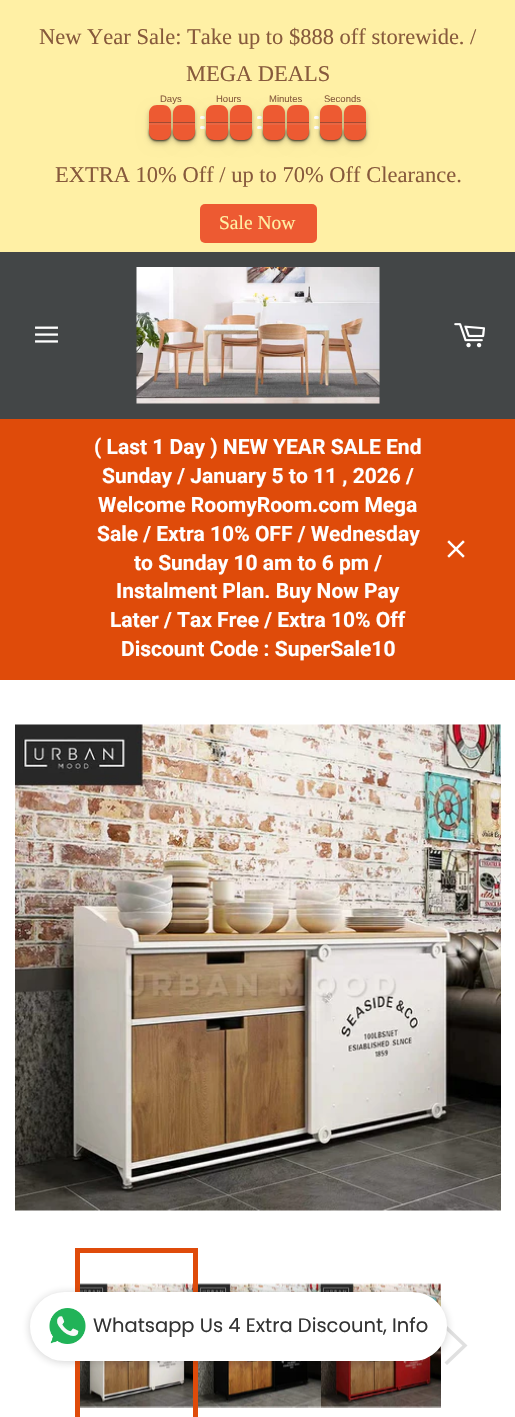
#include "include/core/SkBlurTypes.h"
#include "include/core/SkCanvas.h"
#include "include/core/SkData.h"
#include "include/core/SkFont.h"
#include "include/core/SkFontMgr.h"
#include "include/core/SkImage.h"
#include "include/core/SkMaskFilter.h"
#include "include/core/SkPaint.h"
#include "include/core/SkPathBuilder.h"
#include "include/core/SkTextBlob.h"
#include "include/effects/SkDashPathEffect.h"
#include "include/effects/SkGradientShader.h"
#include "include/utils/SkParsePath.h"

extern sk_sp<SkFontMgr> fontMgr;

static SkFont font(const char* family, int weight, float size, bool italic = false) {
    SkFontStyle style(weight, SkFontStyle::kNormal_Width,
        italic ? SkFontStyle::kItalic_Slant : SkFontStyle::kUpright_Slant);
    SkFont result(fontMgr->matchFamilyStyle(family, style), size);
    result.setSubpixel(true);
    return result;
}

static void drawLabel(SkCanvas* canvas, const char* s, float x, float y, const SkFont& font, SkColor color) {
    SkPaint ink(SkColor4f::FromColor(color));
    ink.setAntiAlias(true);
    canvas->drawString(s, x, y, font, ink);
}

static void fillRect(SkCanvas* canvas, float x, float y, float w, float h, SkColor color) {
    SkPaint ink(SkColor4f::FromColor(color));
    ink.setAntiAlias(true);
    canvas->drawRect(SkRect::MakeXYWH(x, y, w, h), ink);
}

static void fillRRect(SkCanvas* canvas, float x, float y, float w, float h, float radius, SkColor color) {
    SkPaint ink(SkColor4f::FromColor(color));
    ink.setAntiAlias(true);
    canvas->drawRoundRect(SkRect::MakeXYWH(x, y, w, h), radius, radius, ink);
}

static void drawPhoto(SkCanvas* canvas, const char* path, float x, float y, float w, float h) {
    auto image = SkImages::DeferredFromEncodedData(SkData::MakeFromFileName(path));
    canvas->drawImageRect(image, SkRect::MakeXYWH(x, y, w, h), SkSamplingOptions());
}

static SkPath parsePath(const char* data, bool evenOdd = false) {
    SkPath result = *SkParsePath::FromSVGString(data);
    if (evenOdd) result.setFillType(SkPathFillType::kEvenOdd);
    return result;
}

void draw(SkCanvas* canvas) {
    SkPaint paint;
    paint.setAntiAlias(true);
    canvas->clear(0xFF434647);
    fillRect(canvas, 0, 0, 515, 252, 0xFFFFF0A5);
    SkFont font1 = font("Liberation Serif", 400, 22.5f);
    drawLabel(canvas, "New Year Sale: Take up to $888 off storewide. /", 39, 44, font1, 0xFF875A3C);
    drawLabel(canvas, "MEGA DEALS", 186, 81, font1, 0xFF875A3C);
    paint.setColor(0x0D000000);
    paint.setMaskFilter(SkMaskFilter::MakeBlur(kNormal_SkBlurStyle, 6));
    canvas->drawRoundRect(SkRect::MakeXYWH(149, 110, 22, 34), 8, 8, paint);
    paint.setMaskFilter(nullptr);
    paint.setColor(0x3D000000);
    paint.setMaskFilter(SkMaskFilter::MakeBlur(kNormal_SkBlurStyle, 2));
    canvas->drawRoundRect(SkRect::MakeXYWH(149, 108, 22, 35), 8, 8, paint);
    paint.setMaskFilter(nullptr);
    paint.setColor(0x66000000);
    paint.setMaskFilter(SkMaskFilter::MakeBlur(kNormal_SkBlurStyle, 1));
    canvas->drawRoundRect(SkRect::MakeXYWH(149, 125, 22, 16), 8, 8, paint);
    paint.setMaskFilter(nullptr);
    paint.setColor(0x0D000000);
    paint.setMaskFilter(SkMaskFilter::MakeBlur(kNormal_SkBlurStyle, 6));
    canvas->drawRoundRect(SkRect::MakeXYWH(173, 110, 22, 34), 8, 8, paint);
    paint.setMaskFilter(nullptr);
    paint.setColor(0x3D000000);
    paint.setMaskFilter(SkMaskFilter::MakeBlur(kNormal_SkBlurStyle, 2));
    canvas->drawRoundRect(SkRect::MakeXYWH(173, 108, 22, 35), 8, 8, paint);
    paint.setMaskFilter(nullptr);
    paint.setColor(0x66000000);
    paint.setMaskFilter(SkMaskFilter::MakeBlur(kNormal_SkBlurStyle, 1));
    canvas->drawRoundRect(SkRect::MakeXYWH(173, 125, 22, 16), 8, 8, paint);
    paint.setMaskFilter(nullptr);
    paint.setColor(0xFFED5A32);
    canvas->drawPath(parsePath("M157 105H163C167.5 105 171 108.5 171 113V123H149V113C149 108.5 152.5 105 157 105Z"), paint);
    fillRect(canvas, 149, 122, 22, 1, 0x66333333);
    paint.setColor(0x66000000);
    paint.setMaskFilter(SkMaskFilter::MakeBlur(kNormal_SkBlurStyle, 1));
    canvas->drawRoundRect(SkRect::MakeXYWH(149, 125, 22, 16), 8, 8, paint);
    paint.setMaskFilter(nullptr);
    paint.setColor(0xFFED5A32);
    canvas->drawPath(parsePath("M149 123H171V132C171 136.5 167.5 140 163 140H157C152.5 140 149 136.5 149 132Z"), paint);
    fillRect(canvas, 149, 123, 22, 2, 0x1ACCCCCC);
    fillRRect(canvas, 200, 116, 5, 3, 1.5f, 0xFFFFFFFF);
    fillRRect(canvas, 200, 126, 5, 3, 1.5f, 0xFFFFFFFF);
    paint.setColor(0x0D000000);
    paint.setMaskFilter(SkMaskFilter::MakeBlur(kNormal_SkBlurStyle, 6));
    canvas->drawRoundRect(SkRect::MakeXYWH(206, 110, 22, 34), 8, 8, paint);
    paint.setMaskFilter(nullptr);
    paint.setColor(0xFFED5A32);
    canvas->drawPath(parsePath("M181 105H187C191.5 105 195 108.5 195 113V123H173V113C173 108.5 176.5 105 181 105Z"), paint);
    fillRect(canvas, 173, 122, 22, 1, 0x66333333);
    paint.setColor(0x66000000);
    paint.setMaskFilter(SkMaskFilter::MakeBlur(kNormal_SkBlurStyle, 1));
    canvas->drawRoundRect(SkRect::MakeXYWH(173, 125, 22, 16), 8, 8, paint);
    paint.setMaskFilter(nullptr);
    paint.setColor(0xFFED5A32);
    canvas->drawPath(parsePath("M173 123H195V132C195 136.5 191.5 140 187 140H181C176.5 140 173 136.5 173 132Z"), paint);
    fillRect(canvas, 173, 123, 22, 2, 0x1ACCCCCC);
    SkFont font2 = font("Liberation Sans", 400, 9.5f);
    drawLabel(canvas, "Days", 160, 102, font2, 0xFF875A3C);
    paint.setColor(0x3D000000);
    paint.setMaskFilter(SkMaskFilter::MakeBlur(kNormal_SkBlurStyle, 2));
    canvas->drawRoundRect(SkRect::MakeXYWH(206, 108, 22, 35), 8, 8, paint);
    paint.setMaskFilter(nullptr);
    paint.setColor(0x66000000);
    paint.setMaskFilter(SkMaskFilter::MakeBlur(kNormal_SkBlurStyle, 1));
    canvas->drawRoundRect(SkRect::MakeXYWH(206, 125, 22, 16), 8, 8, paint);
    paint.setMaskFilter(nullptr);
    paint.setColor(0x0D000000);
    paint.setMaskFilter(SkMaskFilter::MakeBlur(kNormal_SkBlurStyle, 6));
    canvas->drawRoundRect(SkRect::MakeXYWH(230, 110, 22, 34), 8, 8, paint);
    paint.setMaskFilter(nullptr);
    paint.setColor(0x3D000000);
    paint.setMaskFilter(SkMaskFilter::MakeBlur(kNormal_SkBlurStyle, 2));
    canvas->drawRoundRect(SkRect::MakeXYWH(230, 108, 22, 35), 8, 8, paint);
    paint.setMaskFilter(nullptr);
    paint.setColor(0x66000000);
    paint.setMaskFilter(SkMaskFilter::MakeBlur(kNormal_SkBlurStyle, 1));
    canvas->drawRoundRect(SkRect::MakeXYWH(230, 125, 22, 16), 8, 8, paint);
    paint.setMaskFilter(nullptr);
    paint.setColor(0xFFED5A32);
    canvas->drawPath(parsePath("M214 105H220C224.5 105 228 108.5 228 113V123H206V113C206 108.5 209.5 105 214 105Z"), paint);
    fillRect(canvas, 206, 122, 22, 1, 0x66333333);
    paint.setColor(0x66000000);
    paint.setMaskFilter(SkMaskFilter::MakeBlur(kNormal_SkBlurStyle, 1));
    canvas->drawRoundRect(SkRect::MakeXYWH(206, 125, 22, 16), 8, 8, paint);
    paint.setMaskFilter(nullptr);
    paint.setColor(0xFFED5A32);
    canvas->drawPath(parsePath("M206 123H228V132C228 136.5 224.5 140 220 140H214C209.5 140 206 136.5 206 132Z"), paint);
    fillRect(canvas, 206, 123, 22, 2, 0x1ACCCCCC);
    fillRRect(canvas, 257, 116, 5, 3, 1.5f, 0xFFFFFFFF);
    fillRRect(canvas, 257, 126, 5, 3, 1.5f, 0xFFFFFFFF);
    paint.setColor(0x0D000000);
    paint.setMaskFilter(SkMaskFilter::MakeBlur(kNormal_SkBlurStyle, 6));
    canvas->drawRoundRect(SkRect::MakeXYWH(263, 110, 22, 34), 8, 8, paint);
    paint.setMaskFilter(nullptr);
    paint.setColor(0xFFED5A32);
    canvas->drawPath(parsePath("M238 105H244C248.5 105 252 108.5 252 113V123H230V113C230 108.5 233.5 105 238 105Z"), paint);
    fillRect(canvas, 230, 122, 22, 1, 0x66333333);
    paint.setColor(0x66000000);
    paint.setMaskFilter(SkMaskFilter::MakeBlur(kNormal_SkBlurStyle, 1));
    canvas->drawRoundRect(SkRect::MakeXYWH(230, 125, 22, 16), 8, 8, paint);
    paint.setMaskFilter(nullptr);
    paint.setColor(0xFFED5A32);
    canvas->drawPath(parsePath("M230 123H252V132C252 136.5 248.5 140 244 140H238C233.5 140 230 136.5 230 132Z"), paint);
    fillRect(canvas, 230, 123, 22, 2, 0x1ACCCCCC);
    drawLabel(canvas, "Hours", 216, 102, font2, 0xFF875A3C);
    paint.setColor(0x3D000000);
    paint.setMaskFilter(SkMaskFilter::MakeBlur(kNormal_SkBlurStyle, 2));
    canvas->drawRoundRect(SkRect::MakeXYWH(263, 108, 22, 35), 8, 8, paint);
    paint.setMaskFilter(nullptr);
    paint.setColor(0x66000000);
    paint.setMaskFilter(SkMaskFilter::MakeBlur(kNormal_SkBlurStyle, 1));
    canvas->drawRoundRect(SkRect::MakeXYWH(263, 125, 22, 16), 8, 8, paint);
    paint.setMaskFilter(nullptr);
    paint.setColor(0x0D000000);
    paint.setMaskFilter(SkMaskFilter::MakeBlur(kNormal_SkBlurStyle, 6));
    canvas->drawRoundRect(SkRect::MakeXYWH(287, 110, 22, 34), 8, 8, paint);
    paint.setMaskFilter(nullptr);
    paint.setColor(0x3D000000);
    paint.setMaskFilter(SkMaskFilter::MakeBlur(kNormal_SkBlurStyle, 2));
    canvas->drawRoundRect(SkRect::MakeXYWH(287, 108, 22, 35), 8, 8, paint);
    paint.setMaskFilter(nullptr);
    paint.setColor(0x66000000);
    paint.setMaskFilter(SkMaskFilter::MakeBlur(kNormal_SkBlurStyle, 1));
    canvas->drawRoundRect(SkRect::MakeXYWH(287, 125, 22, 16), 8, 8, paint);
    paint.setMaskFilter(nullptr);
    paint.setColor(0xFFED5A32);
    canvas->drawPath(parsePath("M271 105H277C281.5 105 285 108.5 285 113V123H263V113C263 108.5 266.5 105 271 105Z"), paint);
    fillRect(canvas, 263, 122, 22, 1, 0x66333333);
    paint.setColor(0x66000000);
    paint.setMaskFilter(SkMaskFilter::MakeBlur(kNormal_SkBlurStyle, 1));
    canvas->drawRoundRect(SkRect::MakeXYWH(263, 125, 22, 16), 8, 8, paint);
    paint.setMaskFilter(nullptr);
    paint.setColor(0xFFED5A32);
    canvas->drawPath(parsePath("M263 123H285V132C285 136.5 281.5 140 277 140H271C266.5 140 263 136.5 263 132Z"), paint);
    fillRect(canvas, 263, 123, 22, 2, 0x1ACCCCCC);
    fillRRect(canvas, 314, 116, 5, 3, 1.5f, 0xFFFFFFFF);
    fillRRect(canvas, 314, 126, 5, 3, 1.5f, 0xFFFFFFFF);
    paint.setColor(0x0D000000);
    paint.setMaskFilter(SkMaskFilter::MakeBlur(kNormal_SkBlurStyle, 6));
    canvas->drawRoundRect(SkRect::MakeXYWH(320, 110, 22, 34), 8, 8, paint);
    paint.setMaskFilter(nullptr);
    paint.setColor(0xFFED5A32);
    canvas->drawPath(parsePath("M295 105H301C305.5 105 309 108.5 309 113V123H287V113C287 108.5 290.5 105 295 105Z"), paint);
    fillRect(canvas, 287, 122, 22, 1, 0x66333333);
    paint.setColor(0x66000000);
    paint.setMaskFilter(SkMaskFilter::MakeBlur(kNormal_SkBlurStyle, 1));
    canvas->drawRoundRect(SkRect::MakeXYWH(287, 125, 22, 16), 8, 8, paint);
    paint.setMaskFilter(nullptr);
    paint.setColor(0xFFED5A32);
    canvas->drawPath(parsePath("M287 123H309V132C309 136.5 305.5 140 301 140H295C290.5 140 287 136.5 287 132Z"), paint);
    fillRect(canvas, 287, 123, 22, 2, 0x1ACCCCCC);
    drawLabel(canvas, "Minutes", 269, 102, font2, 0xFF875A3C);
    paint.setColor(0x3D000000);
    paint.setMaskFilter(SkMaskFilter::MakeBlur(kNormal_SkBlurStyle, 2));
    canvas->drawRoundRect(SkRect::MakeXYWH(320, 108, 22, 35), 8, 8, paint);
    paint.setMaskFilter(nullptr);
    paint.setColor(0x66000000);
    paint.setMaskFilter(SkMaskFilter::MakeBlur(kNormal_SkBlurStyle, 1));
    canvas->drawRoundRect(SkRect::MakeXYWH(320, 125, 22, 16), 8, 8, paint);
    paint.setMaskFilter(nullptr);
    paint.setColor(0x0D000000);
    paint.setMaskFilter(SkMaskFilter::MakeBlur(kNormal_SkBlurStyle, 6));
    canvas->drawRoundRect(SkRect::MakeXYWH(344, 110, 22, 34), 8, 8, paint);
    paint.setMaskFilter(nullptr);
    paint.setColor(0x3D000000);
    paint.setMaskFilter(SkMaskFilter::MakeBlur(kNormal_SkBlurStyle, 2));
    canvas->drawRoundRect(SkRect::MakeXYWH(344, 108, 22, 35), 8, 8, paint);
    paint.setMaskFilter(nullptr);
    paint.setColor(0x66000000);
    paint.setMaskFilter(SkMaskFilter::MakeBlur(kNormal_SkBlurStyle, 1));
    canvas->drawRoundRect(SkRect::MakeXYWH(344, 125, 22, 16), 8, 8, paint);
    paint.setMaskFilter(nullptr);
    paint.setColor(0xFFED5A32);
    canvas->drawPath(parsePath("M328 105H334C338.5 105 342 108.5 342 113V123H320V113C320 108.5 323.5 105 328 105Z"), paint);
    fillRect(canvas, 320, 122, 22, 1, 0x66333333);
    paint.setColor(0x66000000);
    paint.setMaskFilter(SkMaskFilter::MakeBlur(kNormal_SkBlurStyle, 1));
    canvas->drawRoundRect(SkRect::MakeXYWH(320, 125, 22, 16), 8, 8, paint);
    paint.setMaskFilter(nullptr);
    paint.setColor(0xFFED5A32);
    canvas->drawPath(parsePath("M320 123H342V132C342 136.5 338.5 140 334 140H328C323.5 140 320 136.5 320 132Z"), paint);
    fillRect(canvas, 320, 123, 22, 2, 0x1ACCCCCC);
    canvas->drawPath(parsePath("M352 105H358C362.5 105 366 108.5 366 113V123H344V113C344 108.5 347.5 105 352 105Z"), paint);
    fillRect(canvas, 344, 122, 22, 1, 0x66333333);
    paint.setColor(0x66000000);
    paint.setMaskFilter(SkMaskFilter::MakeBlur(kNormal_SkBlurStyle, 1));
    canvas->drawRoundRect(SkRect::MakeXYWH(344, 125, 22, 16), 8, 8, paint);
    paint.setMaskFilter(nullptr);
    paint.setColor(0xFFED5A32);
    canvas->drawPath(parsePath("M344 123H366V132C366 136.5 362.5 140 358 140H352C347.5 140 344 136.5 344 132Z"), paint);
    fillRect(canvas, 344, 123, 22, 2, 0x1ACCCCCC);
    drawLabel(canvas, "Seconds", 324, 102, font2, 0xFF875A3C);
    drawLabel(canvas, "EXTRA 10% Off / up to 70% Off Clearance.", 55, 182, font1, 0xFF875A3C);
    fillRRect(canvas, 200, 204, 117, 39, 5, 0xFFED5A32);
    SkFont font3 = font("Liberation Serif", 400, 19.5f);
    drawLabel(canvas, "Sale Now", 219, 229, font3, 0xFFFFF0A5);
    drawPhoto(canvas, "assets/img1.png", 35, 326, 23, 17);
    drawPhoto(canvas, "assets/img2.png", 136, 267, 244, 137);
    drawPhoto(canvas, "assets/img3.png", 454, 323, 31, 25);
    fillRect(canvas, 0, 419, 515, 261, 0xFFDF4B0A);
    SkFont font4 = font("Roboto", 700, 21);
    drawLabel(canvas, "( Last 1 Day ) NEW YEAR SALE End", 94, 454, font4, 0xFFFFFFFF);
    drawLabel(canvas, "Sunday / January 5 to 11 , 2026 /", 102, 483, font4, 0xFFFFFFFF);
    drawLabel(canvas, "Welcome RoomyRoom.com Mega", 98, 512, font4, 0xFFFFFFFF);
    drawLabel(canvas, "Sale / Extra 10% OFF / Wednesday", 97, 541, font4, 0xFFFFFFFF);
    drawLabel(canvas, "to Sunday 10 am to 6 pm /", 134, 570, font4, 0xFFFFFFFF);
    drawLabel(canvas, "Instalment Plan. Buy Now Pay", 116, 598, font4, 0xFFFFFFFF);
    drawLabel(canvas, "Later / Tax Free / Extra 10% Off", 110, 627, font4, 0xFFFFFFFF);
    drawLabel(canvas, "Discount Code : SuperSale10", 121, 656, font4, 0xFFFFFFFF);
    drawPhoto(canvas, "assets/img4.png", 447, 540, 18, 18);
    fillRect(canvas, 0, 680, 515, 737, 0xFFFFFFFF);
    drawPhoto(canvas, "assets/img5.png", 15, 724, 486, 487);
    drawPhoto(canvas, "assets/img6.png", 80, 1283, 113, 125);
    paint.setStroke(true);
    paint.setStrokeWidth(5);
    paint.setColor(0xFFDF4B0A);
    canvas->drawRect(SkRect::MakeXYWH(77.5f, 1250.5f, 118, 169), paint);
    drawPhoto(canvas, "assets/img7.png", 198, 1283, 123, 125);
    drawPhoto(canvas, "assets/img8.png", 321, 1283, 120, 125);
    paint.setStroke(false);
    paint.setColor(0xFFE0E0E0);
    canvas->drawPath(parsePath("M444.5 1328.5L447 1326L467.5 1345.5L447 1365L444.5 1362.5L462.5 1345.5Z"), paint);
    paint.setColor(0x331B1B1B);
    paint.setMaskFilter(SkMaskFilter::MakeBlur(kNormal_SkBlurStyle, 4.5f));
    canvas->drawRoundRect(SkRect::MakeXYWH(30, 1293, 417, 69), 34.5f, 34.5f, paint);
    paint.setMaskFilter(nullptr);
    paint.setColor(0xFFFFFFFF);
    canvas->drawRoundRect(SkRect::MakeXYWH(31, 1293, 415, 67), 33.5f, 33.5f, paint);
    paint.setStroke(true);
    paint.setStrokeWidth(2);
    canvas->drawRoundRect(SkRect::MakeXYWH(31, 1293, 415, 67), 33.5f, 33.5f, paint);
    drawPhoto(canvas, "assets/img9.png", 49, 1308, 37, 36);
    SkFont font5 = font("Poppins", 400, 19.5f);
    drawLabel(canvas, "Whatsapp Us 4 Extra Discount, Info", 93, 1332, font5, 0xFF333333);
}
